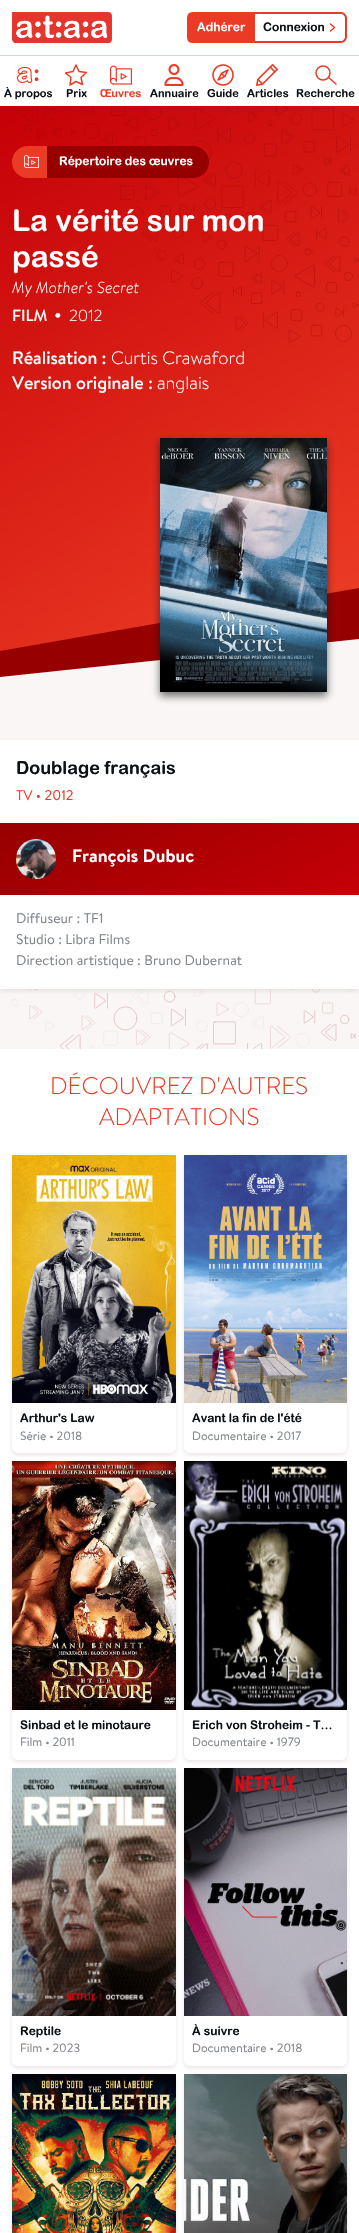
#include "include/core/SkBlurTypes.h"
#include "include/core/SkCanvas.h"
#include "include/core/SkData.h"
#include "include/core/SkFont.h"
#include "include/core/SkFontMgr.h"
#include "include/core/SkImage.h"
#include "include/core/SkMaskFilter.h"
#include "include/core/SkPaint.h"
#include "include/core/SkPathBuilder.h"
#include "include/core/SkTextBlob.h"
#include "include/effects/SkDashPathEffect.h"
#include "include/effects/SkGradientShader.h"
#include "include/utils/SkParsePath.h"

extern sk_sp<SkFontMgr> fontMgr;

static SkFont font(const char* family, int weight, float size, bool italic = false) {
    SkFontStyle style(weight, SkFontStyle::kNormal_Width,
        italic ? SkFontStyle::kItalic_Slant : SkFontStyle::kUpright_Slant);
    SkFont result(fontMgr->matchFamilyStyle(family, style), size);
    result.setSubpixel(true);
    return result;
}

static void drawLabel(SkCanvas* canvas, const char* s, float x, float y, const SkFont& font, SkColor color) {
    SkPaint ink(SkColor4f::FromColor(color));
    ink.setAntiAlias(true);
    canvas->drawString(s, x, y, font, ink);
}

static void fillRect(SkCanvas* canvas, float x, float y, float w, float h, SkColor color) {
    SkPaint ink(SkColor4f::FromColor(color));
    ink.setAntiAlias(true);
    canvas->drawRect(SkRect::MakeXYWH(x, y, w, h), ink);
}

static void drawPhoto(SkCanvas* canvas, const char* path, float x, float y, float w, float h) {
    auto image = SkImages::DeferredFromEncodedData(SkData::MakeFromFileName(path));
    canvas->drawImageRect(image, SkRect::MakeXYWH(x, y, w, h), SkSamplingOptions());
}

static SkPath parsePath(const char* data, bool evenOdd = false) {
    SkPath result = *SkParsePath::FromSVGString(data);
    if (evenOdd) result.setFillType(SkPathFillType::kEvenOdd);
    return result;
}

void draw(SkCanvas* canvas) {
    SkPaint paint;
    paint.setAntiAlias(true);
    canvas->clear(0xFFFFFFFF);
    drawPhoto(canvas, "assets/img1.png", 12, 12, 100, 31);
    paint.setColor(0xFFEB3B24);
    canvas->drawPath(parsePath("M193 13H254V42H193C190 42 188 40 188 37V18C188 15 190 13 193 13Z"), paint);
    paint.setStroke(true);
    paint.setStrokeWidth(2);
    canvas->drawPath(parsePath("M193 13H254V42H193C190 42 188 40 188 37V18C188 15 190 13 193 13Z"), paint);
    SkFont font1 = font("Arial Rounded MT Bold", 700, 12);
    drawLabel(canvas, "Adhérer", 197, 31, font1, 0xFFFFFFFF);
    paint.setStroke(false);
    canvas->drawPath(parsePath("M255 12H341C344 12 347 15 347 18V37C347 40 344 43 341 43H255ZM255 14H341C343 14 345 16 345 18V37C345 39 343 41 341 41H255Z", true), paint);
    drawLabel(canvas, "Connexion", 263, 31, font1, 0xFF0B1116);
    paint.setStroke(true);
    paint.setStrokeWidth(1.5f);
    paint.setStrokeCap(SkPaint::kRound_Cap);
    paint.setStrokeJoin(SkPaint::kRound_Join);
    canvas->drawPath(parsePath("M330.5 24L334.5 27.5L330.5 31"), paint);
    fillRect(canvas, 0, 55, 359, 1, 0xFFDDD0D0);
    drawPhoto(canvas, "assets/img2.png", 17, 67, 22, 16);
    SkFont font2 = font("Arial Rounded MT Bold", 700, 11);
    drawLabel(canvas, "À propos", 4, 97, font2, 0xFF0B1116);
    canvas->save();
    canvas->clipRect(SkRect::MakeXYWH(65, 64, 22, 22));
    paint.setStrokeCap(SkPaint::kButt_Cap);
    canvas->drawPath(parsePath("M82.5 84.5L76 81.5L70 85L71 77.5L65.5 73L73 71.5L76 65L79 71.5L86.5 72.5L81 77.5Z"), paint);
    canvas->restore();
    drawLabel(canvas, "Prix", 66, 97, font2, 0xFF0B1116);
    drawPhoto(canvas, "assets/img3.png", 110, 65, 22, 20);
    drawLabel(canvas, "Œuvres", 100, 97, font2, 0xFFEB3B24);
    drawPhoto(canvas, "assets/img4.png", 164, 64, 20, 22);
    drawLabel(canvas, "Annuaire", 150, 97, font2, 0xFF0B1116);
    drawPhoto(canvas, "assets/img5.png", 212, 64, 22, 22);
    drawLabel(canvas, "Guide", 207, 97, font2, 0xFF0B1116);
    drawPhoto(canvas, "assets/img6.png", 256, 64, 22, 22);
    drawLabel(canvas, "Articles", 247, 97, font2, 0xFF0B1116);
    paint.setStrokeJoin(SkPaint::kMiter_Join);
    canvas->drawCircle(323, 73, 7, paint);
    paint.setStrokeCap(SkPaint::kRound_Cap);
    paint.setStrokeJoin(SkPaint::kRound_Join);
    canvas->drawPath(parsePath("M336 84L328.5 77.5"), paint);
    drawLabel(canvas, "Recherche", 296, 97, font2, 0xFF0B1116);
    fillRect(canvas, 0, 639, 359, 101, 0xFFF9F6F5);
    canvas->save();
    canvas->clipRect(SkRect::MakeXYWH(0, 106, 359, 634));
    paint.setStroke(false);
    paint.setColor(0xFF960000);
    canvas->drawPath(parsePath("M0 106L359 68V639L0 677Z"), paint);
    {
        const SkColor colors[] = {0xFFC50007, 0xFFEB3B24};
        const float stops[] = {0, 1};
        const SkPoint ends[] = {{17, 93}, {342, 600}};
        paint.setShader(SkGradientShader::MakeLinear(ends, colors, stops, 2, SkTileMode::kClamp));
        paint.setAlpha(255);
    }
    canvas->drawPath(parsePath("M0 106L359 43V588L0 651Z"), paint);
    canvas->restore();
    drawPhoto(canvas, "assets/img7.png", 18, 106, 341, 237);
    paint.setShader(nullptr);
    paint.setColor(0xFFEB3B24);
    canvas->drawPath(parsePath("M28 146H47V178H28C19 178 12 171 12 162C12 153 19 146 28 146Z"), paint);
    drawPhoto(canvas, "assets/img8.png", 24, 155, 15, 13);
    paint.setColor(0xFF960000);
    canvas->drawPath(parsePath("M47 146H193C202 146 209 153 209 162C209 171 202 178 193 178H47Z"), paint);
    drawLabel(canvas, "Répertoire des œuvres", 59, 165, font1, 0xFFFFFFFF);
    SkFont font3 = font("Arial Rounded MT Bold", 700, 30);
    drawLabel(canvas, "La vérité sur mon", 12, 231, font3, 0xFFFFFFFF);
    drawLabel(canvas, "passé", 12, 267, font3, 0xFFFFFFFF);
    SkFont font4 = font("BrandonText", 300, 16, true);
    drawLabel(canvas, "My Mother's Secret", 12, 293, font4, 0xFFFFFFFF);
    SkFont font5 = font("BrandonText", 500, 16);
    drawLabel(canvas, "FILM", 12, 321, font5, 0xFFFFFFFF);
    SkFont font6 = font("Arial Rounded MT Bold", 700, 16);
    drawLabel(canvas, "•", 55, 321, font6, 0xFFFFFFFF);
    SkFont font7 = font("BrandonText", 300, 16);
    drawLabel(canvas, "2012", 69, 321, font7, 0xFFFFFFFF);
    SkFont font8 = font("BrandonText", 500, 18);
    drawLabel(canvas, "Réalisation :", 12, 364, font8, 0xFFFFFFFF);
    SkFont font9 = font("BrandonText", 300, 18);
    drawLabel(canvas, "Curtis Crawaford", 111, 364, font9, 0xFFFFFFFF);
    drawLabel(canvas, "Version originale :", 12, 389, font8, 0xFFFFFFFF);
    drawLabel(canvas, "anglais", 157, 389, font9, 0xFFFFFFFF);
    paint.setColor(0x990B1116);
    paint.setMaskFilter(SkMaskFilter::MakeBlur(kNormal_SkBlurStyle, 4));
    canvas->drawRect(SkRect::MakeXYWH(160, 442, 167, 254), paint);
    paint.setMaskFilter(nullptr);
    drawPhoto(canvas, "assets/img9.png", 160, 438, 167, 254);
    fillRect(canvas, 0, 989, 359, 60, 0xFFF9F6F5);
    drawPhoto(canvas, "assets/img11.png", 11, 989, 345, 60);
    paint.setColor(0x99DDD0D0);
    paint.setMaskFilter(SkMaskFilter::MakeBlur(kNormal_SkBlurStyle, 2));
    canvas->drawRect(SkRect::MakeXYWH(0, 742, 359, 249), paint);
    paint.setMaskFilter(nullptr);
    fillRect(canvas, 0, 740, 359, 249, 0xFFFFFFFF);
    SkFont font10 = font("Arial Rounded MT Bold", 700, 18);
    drawLabel(canvas, "Doublage français", 16, 774, font10, 0xFF0B1116);
    SkFont font11 = font("BrandonText", 400, 14);
    drawLabel(canvas, "TV • 2012", 16, 800, font11, 0xFFEB3B24);
    {
        const SkColor colors[] = {0xFF960000, 0xFFC50007};
        const float stops[] = {0, 1};
        const SkPoint ends[] = {{119, 754}, {240, 964}};
        paint.setShader(SkGradientShader::MakeLinear(ends, colors, stops, 2, SkTileMode::kClamp));
        paint.setAlpha(255);
    }
    canvas->drawRect(SkRect::MakeXYWH(0, 823, 359, 72), paint);
    drawPhoto(canvas, "assets/img10.png", 16, 839, 40, 40);
    SkFont font12 = font("BrandonText", 700, 18);
    drawLabel(canvas, "François Dubuc", 72, 862, font12, 0xFFFFFFFF);
    drawLabel(canvas, "Diffuseur : TF1", 16, 923, font11, 0xFF7F848A);
    drawLabel(canvas, "Studio : Libra Films", 16, 944, font11, 0xFF7F848A);
    drawLabel(canvas, "Direction artistique : Bruno Dubernat", 16, 965, font11, 0xFF7F848A);
    SkFont font13 = font("BrandonText", 300, 24);
    drawLabel(canvas, "DÉCOUVREZ D'AUTRES", 50, 1094, font13, 0xFFEB3B24);
    drawLabel(canvas, "ADAPTATIONS", 99, 1125, font13, 0xFFEB3B24);
    paint.setShader(nullptr);
    paint.setColor(0x99DDD0D0);
    paint.setMaskFilter(SkMaskFilter::MakeBlur(kNormal_SkBlurStyle, 2));
    canvas->drawRoundRect(SkRect::MakeXYWH(12, 1157, 164, 298), 6, 6, paint);
    paint.setMaskFilter(nullptr);
    paint.setColor(0xFFFFFFFF);
    canvas->drawPath(parsePath("M12 1155H176V1447C176 1450.5 173.5 1453 170 1453H18C14.5 1453 12 1450.5 12 1447Z"), paint);
    drawPhoto(canvas, "assets/img12.png", 12, 1155, 164, 248);
    drawLabel(canvas, "Arthur's Law", 20, 1422, font1, 0xFF0B1116);
    SkFont font14 = font("BrandonText", 400, 12);
    drawLabel(canvas, "Série • 2018", 20, 1440, font14, 0xFF7F848A);
    paint.setColor(0x99DDD0D0);
    paint.setMaskFilter(SkMaskFilter::MakeBlur(kNormal_SkBlurStyle, 2));
    canvas->drawRoundRect(SkRect::MakeXYWH(184, 1157, 163, 298), 6, 6, paint);
    paint.setMaskFilter(nullptr);
    paint.setColor(0xFFFFFFFF);
    canvas->drawPath(parsePath("M184 1155H347V1447C347 1450.5 344.5 1453 341 1453H190C186.5 1453 184 1450.5 184 1447Z"), paint);
    drawPhoto(canvas, "assets/img13.png", 184, 1155, 163, 248);
    drawLabel(canvas, "Avant la fin de l'été", 192, 1422, font1, 0xFF0B1116);
    drawLabel(canvas, "Documentaire • 2017", 192, 1440, font14, 0xFF7F848A);
    paint.setColor(0x99DDD0D0);
    paint.setMaskFilter(SkMaskFilter::MakeBlur(kNormal_SkBlurStyle, 2));
    canvas->drawRoundRect(SkRect::MakeXYWH(12, 1463, 164, 299), 6, 6, paint);
    paint.setMaskFilter(nullptr);
    paint.setColor(0xFFFFFFFF);
    canvas->drawPath(parsePath("M12 1461H176V1754C176 1757.5 173.5 1760 170 1760H18C14.5 1760 12 1757.5 12 1754Z"), paint);
    drawPhoto(canvas, "assets/img14.png", 12, 1461, 164, 249);
    drawLabel(canvas, "Sinbad et le minotaure", 20, 1729, font1, 0xFF0B1116);
    drawLabel(canvas, "Film • 2011", 20, 1746, font14, 0xFF7F848A);
    paint.setColor(0x99DDD0D0);
    paint.setMaskFilter(SkMaskFilter::MakeBlur(kNormal_SkBlurStyle, 2));
    canvas->drawRoundRect(SkRect::MakeXYWH(184, 1463, 163, 299), 6, 6, paint);
    paint.setMaskFilter(nullptr);
    paint.setColor(0xFFFFFFFF);
    canvas->drawPath(parsePath("M184 1461H347V1754C347 1757.5 344.5 1760 341 1760H190C186.5 1760 184 1757.5 184 1754Z"), paint);
    drawPhoto(canvas, "assets/img15.png", 184, 1461, 163, 249);
    drawLabel(canvas, "Erich von Stroheim - T…", 192, 1729, font1, 0xFF0B1116);
    drawLabel(canvas, "Documentaire • 1979", 192, 1746, font14, 0xFF7F848A);
    paint.setColor(0x99DDD0D0);
    paint.setMaskFilter(SkMaskFilter::MakeBlur(kNormal_SkBlurStyle, 2));
    canvas->drawRoundRect(SkRect::MakeXYWH(12, 1770, 164, 298), 6, 6, paint);
    paint.setMaskFilter(nullptr);
    paint.setColor(0xFFFFFFFF);
    canvas->drawPath(parsePath("M12 1768H176V2060C176 2063.5 173.5 2066 170 2066H18C14.5 2066 12 2063.5 12 2060Z"), paint);
    drawPhoto(canvas, "assets/img16.png", 12, 1768, 164, 248);
    drawLabel(canvas, "Reptile", 20, 2035, font1, 0xFF0B1116);
    drawLabel(canvas, "Film • 2023", 20, 2052, font14, 0xFF7F848A);
    paint.setColor(0x99DDD0D0);
    paint.setMaskFilter(SkMaskFilter::MakeBlur(kNormal_SkBlurStyle, 2));
    canvas->drawRoundRect(SkRect::MakeXYWH(184, 1770, 163, 298), 6, 6, paint);
    paint.setMaskFilter(nullptr);
    paint.setColor(0xFFFFFFFF);
    canvas->drawPath(parsePath("M184 1768H347V2060C347 2063.5 344.5 2066 341 2066H190C186.5 2066 184 2063.5 184 2060Z"), paint);
    drawPhoto(canvas, "assets/img17.png", 184, 1768, 163, 248);
    drawLabel(canvas, "À suivre", 192, 2035, font1, 0xFF0B1116);
    drawLabel(canvas, "Documentaire • 2018", 192, 2052, font14, 0xFF7F848A);
    paint.setColor(0x99DDD0D0);
    paint.setMaskFilter(SkMaskFilter::MakeBlur(kNormal_SkBlurStyle, 2));
    canvas->drawRoundRect(SkRect::MakeXYWH(12, 2076, 164, 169), 6, 6, paint);
    paint.setMaskFilter(nullptr);
    drawPhoto(canvas, "assets/img18.png", 12, 2074, 164, 159);
    paint.setMaskFilter(SkMaskFilter::MakeBlur(kNormal_SkBlurStyle, 2));
    canvas->drawRoundRect(SkRect::MakeXYWH(184, 2076, 163, 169), 6, 6, paint);
    paint.setMaskFilter(nullptr);
    drawPhoto(canvas, "assets/img19.png", 184, 2074, 163, 159);
}
